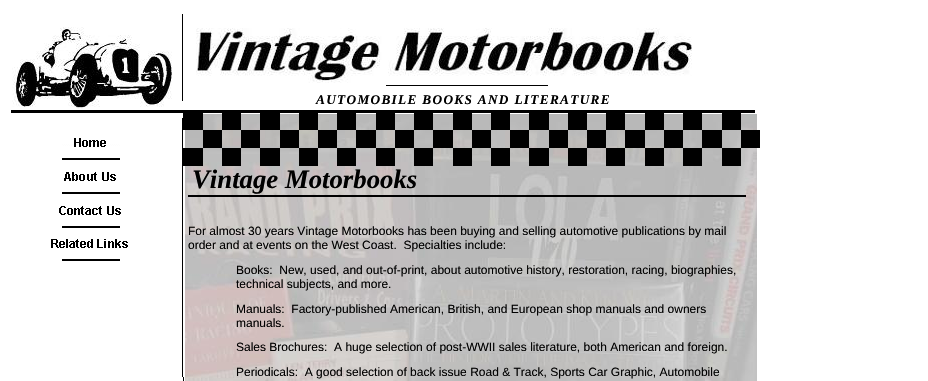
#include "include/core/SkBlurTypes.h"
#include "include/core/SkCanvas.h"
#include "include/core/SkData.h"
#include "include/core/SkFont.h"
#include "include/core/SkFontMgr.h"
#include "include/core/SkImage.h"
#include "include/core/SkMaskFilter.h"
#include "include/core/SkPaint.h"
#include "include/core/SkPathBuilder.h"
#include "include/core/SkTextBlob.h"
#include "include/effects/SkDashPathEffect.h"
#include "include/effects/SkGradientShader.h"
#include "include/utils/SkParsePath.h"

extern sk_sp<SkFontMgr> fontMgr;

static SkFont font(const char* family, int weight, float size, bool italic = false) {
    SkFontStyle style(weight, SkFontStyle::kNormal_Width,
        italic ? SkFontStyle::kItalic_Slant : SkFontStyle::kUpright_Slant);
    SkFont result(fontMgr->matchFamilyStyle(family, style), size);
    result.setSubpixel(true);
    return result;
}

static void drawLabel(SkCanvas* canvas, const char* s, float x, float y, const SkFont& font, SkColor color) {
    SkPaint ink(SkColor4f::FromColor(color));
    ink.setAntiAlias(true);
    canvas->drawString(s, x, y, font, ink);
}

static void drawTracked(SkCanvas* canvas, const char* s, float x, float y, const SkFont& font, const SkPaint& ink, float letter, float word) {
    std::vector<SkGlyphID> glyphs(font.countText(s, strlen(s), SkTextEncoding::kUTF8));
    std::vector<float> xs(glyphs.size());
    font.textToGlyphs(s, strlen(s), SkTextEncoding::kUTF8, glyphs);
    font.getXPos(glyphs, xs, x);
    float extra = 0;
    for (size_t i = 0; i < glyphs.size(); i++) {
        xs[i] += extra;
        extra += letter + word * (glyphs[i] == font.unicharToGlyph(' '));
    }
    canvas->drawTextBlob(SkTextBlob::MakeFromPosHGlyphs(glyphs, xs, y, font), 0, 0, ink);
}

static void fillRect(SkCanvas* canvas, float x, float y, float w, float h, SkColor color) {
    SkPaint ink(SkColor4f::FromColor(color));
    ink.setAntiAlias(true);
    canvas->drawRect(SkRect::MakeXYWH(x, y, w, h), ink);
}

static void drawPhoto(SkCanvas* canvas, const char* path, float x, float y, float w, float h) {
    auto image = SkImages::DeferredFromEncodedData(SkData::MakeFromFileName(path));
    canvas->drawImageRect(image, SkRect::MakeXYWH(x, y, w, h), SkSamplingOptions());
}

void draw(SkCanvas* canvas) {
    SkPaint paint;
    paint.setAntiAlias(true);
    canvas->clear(0xFFFFFFFF);
    drawPhoto(canvas, "assets/img1.png", 12, 27, 160, 82);
    fillRect(canvas, 182, 14, 1, 87, 0xFF000000);
    drawPhoto(canvas, "assets/img2.png", 196, 28, 496, 55);
    fillRect(canvas, 386, 85, 162, 1, 0xFF000000);
    SkFont font1 = font("Liberation Serif", 700, 13.3f, true);
    paint.setColor(0xFF000000);
    drawTracked(canvas, "AUTOMOBILE BOOKS AND LITERATURE", 316, 104, font1, paint, 1.3f, 0);
    fillRect(canvas, 11, 110, 744, 3, 0xFF000000);
    drawPhoto(canvas, "assets/img5.png", 182, 118, 2, 263);
    drawPhoto(canvas, "assets/img6.png", 185, 114, 572, 267);
    drawPhoto(canvas, "assets/img3.png", 183, 113, 577, 53);
    drawPhoto(canvas, "assets/img4.png", 51, 138, 77, 123);
    SkFont font2 = font("Liberation Serif", 700, 26.75f, true);
    drawLabel(canvas, "Vintage Motorbooks", 192, 188, font2, 0xFF000000);
    fillRect(canvas, 188, 195, 558, 2, 0xFF000000);
    SkFont font3 = font("Liberation Sans", 400, 12);
    drawLabel(canvas, "For almost 30 years Vintage Motorbooks has been buying and selling automotive publications by mail", 188, 235, font3, 0xFF000000);
    drawLabel(canvas, "order and at events on the West Coast.  Specialties include:", 188, 249, font3, 0xFF000000);
    drawLabel(canvas, "Books:  New, used, and out-of-print, about automotive history, restoration, racing, biographies,", 236, 274, font3, 0xFF000000);
    drawLabel(canvas, "technical subjects, and more.", 236, 288, font3, 0xFF000000);
    drawLabel(canvas, "Manuals:  Factory-published American, British, and European shop manuals and owners", 236, 313, font3, 0xFF000000);
    drawLabel(canvas, "manuals.", 236, 327, font3, 0xFF000000);
    drawLabel(canvas, "Sales Brochures:  A huge selection of post-WWII sales literature, both American and foreign.", 236, 351, font3, 0xFF000000);
    drawLabel(canvas, "Periodicals:  A good selection of back issue Road & Track, Sports Car Graphic, Automobile", 236, 376, font3, 0xFF000000);
}
